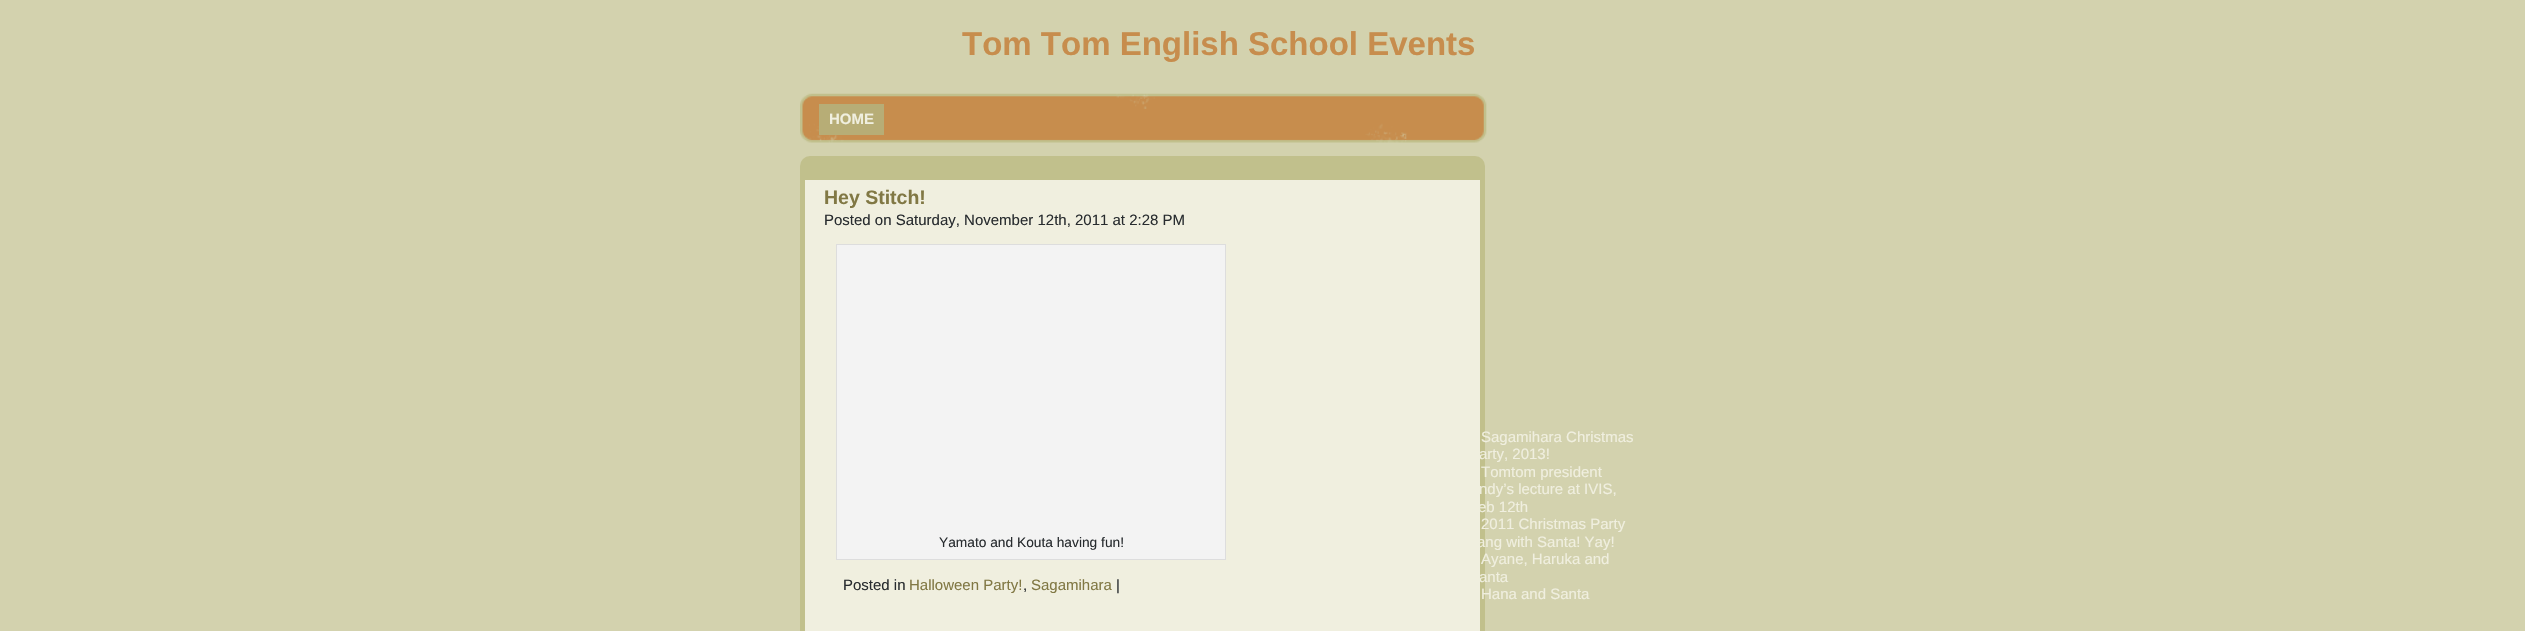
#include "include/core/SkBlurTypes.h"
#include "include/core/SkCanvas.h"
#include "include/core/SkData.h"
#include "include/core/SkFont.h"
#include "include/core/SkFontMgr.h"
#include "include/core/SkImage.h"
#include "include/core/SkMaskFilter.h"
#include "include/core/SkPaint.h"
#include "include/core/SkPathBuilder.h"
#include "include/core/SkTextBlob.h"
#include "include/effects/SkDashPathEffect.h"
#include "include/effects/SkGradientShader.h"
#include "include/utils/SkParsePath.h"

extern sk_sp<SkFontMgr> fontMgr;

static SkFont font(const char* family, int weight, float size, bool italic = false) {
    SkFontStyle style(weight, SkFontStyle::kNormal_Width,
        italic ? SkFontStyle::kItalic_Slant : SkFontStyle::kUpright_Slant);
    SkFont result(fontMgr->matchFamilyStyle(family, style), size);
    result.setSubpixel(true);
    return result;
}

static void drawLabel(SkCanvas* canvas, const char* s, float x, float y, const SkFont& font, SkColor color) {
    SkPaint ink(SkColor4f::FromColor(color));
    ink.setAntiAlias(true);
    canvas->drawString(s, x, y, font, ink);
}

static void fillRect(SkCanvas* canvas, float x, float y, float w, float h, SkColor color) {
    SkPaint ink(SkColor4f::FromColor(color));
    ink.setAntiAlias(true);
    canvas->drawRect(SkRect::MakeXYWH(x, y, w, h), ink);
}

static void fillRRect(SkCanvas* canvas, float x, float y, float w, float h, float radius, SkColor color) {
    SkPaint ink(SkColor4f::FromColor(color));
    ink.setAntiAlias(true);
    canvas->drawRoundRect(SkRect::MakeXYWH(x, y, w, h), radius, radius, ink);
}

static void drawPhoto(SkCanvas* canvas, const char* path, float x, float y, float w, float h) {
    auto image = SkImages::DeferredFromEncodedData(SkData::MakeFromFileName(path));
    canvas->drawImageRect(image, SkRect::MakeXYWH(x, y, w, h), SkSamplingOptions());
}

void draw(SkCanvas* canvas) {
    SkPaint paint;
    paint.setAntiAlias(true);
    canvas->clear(0xFFD3D2AE);
    SkFont font1 = font("Liberation Sans", 700, 33);
    drawLabel(canvas, "Tom Tom English School Events", 962, 55, font1, 0xFFC78D4D);
    drawPhoto(canvas, "assets/img1.png", 800, 93, 687, 50);
    fillRect(canvas, 819, 104, 65, 31, 0xFFB7AD76);
    SkFont font2 = font("Liberation Sans", 700, 15);
    drawLabel(canvas, "HOME", 829, 124, font2, 0xFFF0EFDF);
    fillRRect(canvas, 800, 156, 685, 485, 10, 0xFFC1C08C);
    fillRect(canvas, 805, 180, 675, 451, 0xFFF0EFDF);
    SkFont font3 = font("Liberation Sans", 700, 19.5f);
    drawLabel(canvas, "Hey Stitch!", 824, 204, font3, 0xFF817844);
    SkFont font4 = font("Liberation Sans", 400, 15);
    drawLabel(canvas, "Posted on Saturday, November 12th, 2011 at 2:28 PM", 824, 225, font4, 0xFF282C2F);
    paint.setColor(0xFFF3F3F3);
    canvas->drawRect(SkRect::MakeXYWH(836.5f, 244.5f, 389, 315), paint);
    paint.setStroke(true);
    paint.setStrokeWidth(1);
    paint.setColor(0xFFDDDDDD);
    canvas->drawRect(SkRect::MakeXYWH(836.5f, 244.5f, 389, 315), paint);
    SkFont font5 = font("Liberation Sans", 400, 13.75f);
    drawLabel(canvas, "Yamato and Kouta having fun!", 939, 547, font5, 0xFF282C2F);
    drawLabel(canvas, "Posted in", 843, 590, font4, 0xFF282C2F);
    drawLabel(canvas, "Halloween Party!", 909, 590, font4, 0xFF817844);
    drawLabel(canvas, ",", 1023, 590, font4, 0xFF282C2F);
    drawLabel(canvas, "Sagamihara", 1031, 590, font4, 0xFF817844);
    drawLabel(canvas, "|", 1116, 590, font4, 0xFF282C2F);
    drawLabel(canvas, "Sagamihara Christmas", 1481, 442, font4, 0xFFF0EFDF);
    drawLabel(canvas, "arty, 2013!", 1479, 459, font4, 0xFFF0EFDF);
    drawLabel(canvas, "Tomtom president", 1481, 477, font4, 0xFFF0EFDF);
    drawLabel(canvas, "ndy’s lecture at IVIS,", 1479, 494, font4, 0xFFF0EFDF);
    drawLabel(canvas, "eb 12th", 1478, 512, font4, 0xFFF0EFDF);
    drawLabel(canvas, "2011 Christmas Party", 1481, 529, font4, 0xFFF0EFDF);
    drawLabel(canvas, "ang with Santa! Yay!", 1477, 547, font4, 0xFFF0EFDF);
    drawLabel(canvas, "Ayane, Haruka and", 1481, 564, font4, 0xFFF0EFDF);
    drawLabel(canvas, "anta", 1479, 582, font4, 0xFFF0EFDF);
    drawLabel(canvas, "Hana and Santa", 1481, 599, font4, 0xFFF0EFDF);
}
